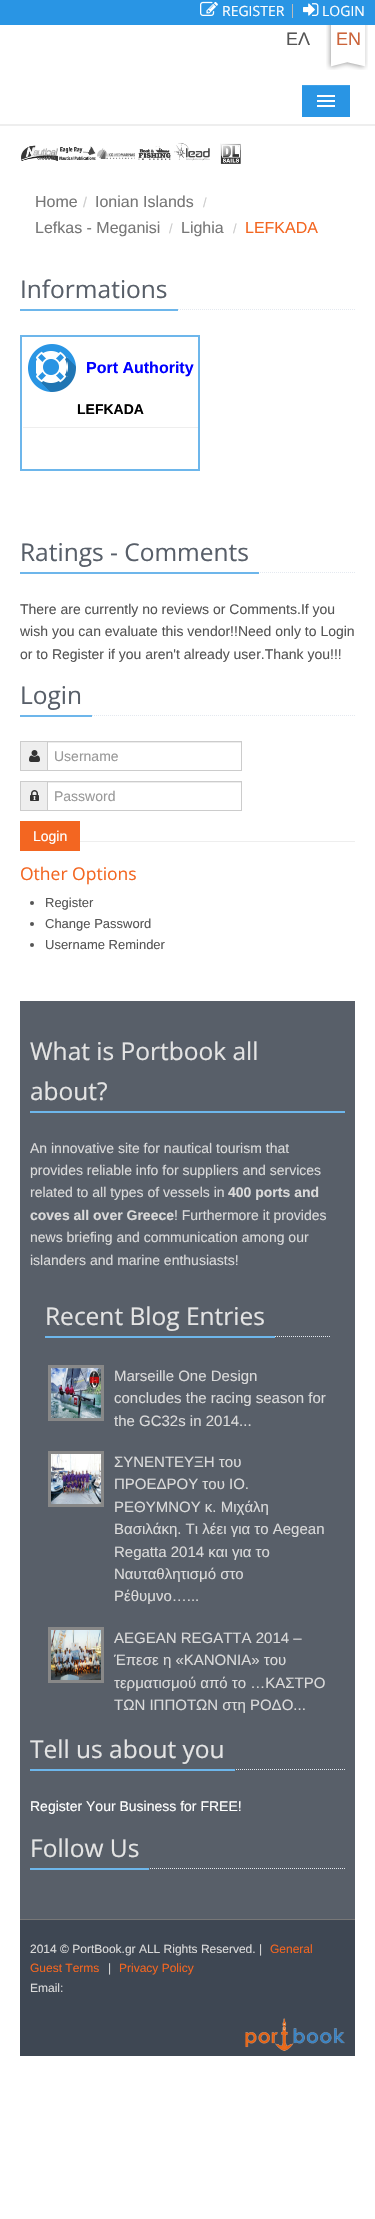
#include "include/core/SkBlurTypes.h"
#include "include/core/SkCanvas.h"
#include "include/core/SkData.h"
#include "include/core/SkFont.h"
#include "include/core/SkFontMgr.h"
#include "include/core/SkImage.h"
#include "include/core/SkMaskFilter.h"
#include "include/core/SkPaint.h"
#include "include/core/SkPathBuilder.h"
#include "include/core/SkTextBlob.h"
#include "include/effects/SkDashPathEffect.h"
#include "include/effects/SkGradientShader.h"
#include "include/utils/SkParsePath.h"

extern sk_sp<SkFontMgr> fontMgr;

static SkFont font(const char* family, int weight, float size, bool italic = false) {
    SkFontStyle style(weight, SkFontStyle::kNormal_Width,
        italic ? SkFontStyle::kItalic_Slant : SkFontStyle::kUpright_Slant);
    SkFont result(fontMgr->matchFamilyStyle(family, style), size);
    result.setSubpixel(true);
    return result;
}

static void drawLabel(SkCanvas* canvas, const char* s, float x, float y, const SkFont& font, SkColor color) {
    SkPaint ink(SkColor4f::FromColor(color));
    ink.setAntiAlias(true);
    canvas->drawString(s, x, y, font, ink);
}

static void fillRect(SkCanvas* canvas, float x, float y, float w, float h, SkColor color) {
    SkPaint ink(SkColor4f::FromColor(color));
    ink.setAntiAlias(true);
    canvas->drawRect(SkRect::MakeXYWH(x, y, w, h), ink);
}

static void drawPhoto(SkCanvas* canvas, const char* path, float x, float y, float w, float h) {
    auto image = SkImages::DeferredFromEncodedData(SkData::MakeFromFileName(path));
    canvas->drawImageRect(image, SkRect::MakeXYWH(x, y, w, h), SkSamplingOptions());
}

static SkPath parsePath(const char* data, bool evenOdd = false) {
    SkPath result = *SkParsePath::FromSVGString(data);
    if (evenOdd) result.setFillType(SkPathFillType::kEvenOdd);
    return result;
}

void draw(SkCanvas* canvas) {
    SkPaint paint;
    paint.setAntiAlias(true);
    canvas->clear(0xFFFFFFFF);
    fillRect(canvas, 0, 0, 375, 25, 0xFF2995E4);
    drawPhoto(canvas, "assets/img1.png", 200, 1, 18, 15);
    SkFont font1 = font("Open Sans", 400, 14);
    drawLabel(canvas, "REGISTER", 222, 16, font1, 0xFFFFFFFF);
    fillRect(canvas, 292, 4, 1, 14, 0xFFBBBBBB);
    drawPhoto(canvas, "assets/img2.png", 303, 3, 16, 13);
    drawLabel(canvas, "LOGIN", 322, 16, font1, 0xFFFFFFFF);
    SkFont font2 = font("Liberation Sans", 400, 18);
    drawLabel(canvas, "ΕΛ", 286, 45, font2, 0xFF555555);
    drawPhoto(canvas, "assets/img3.png", 326, 25, 42, 45);
    drawLabel(canvas, "EN", 336, 45, font2, 0xFFCB643B);
    fillRect(canvas, 0, 124, 375, 2, 0xFFEEEEEE);
    fillRect(canvas, 302, 86, 48, 31, 0xFF2995E4);
    fillRect(canvas, 302, 85, 48, 1, 0xFF3EA0E7);
    fillRect(canvas, 317, 95, 18, 2, 0xFFFFFFFF);
    fillRect(canvas, 317, 100, 18, 2, 0xFFFFFFFF);
    fillRect(canvas, 317, 105, 18, 2, 0xFFFFFFFF);
    drawPhoto(canvas, "assets/img4.png", 21, 135, 37, 37);
    drawPhoto(canvas, "assets/img5.png", 59, 135, 37, 37);
    drawPhoto(canvas, "assets/img6.png", 97, 135, 38, 37);
    drawPhoto(canvas, "assets/img7.png", 136, 135, 37, 37);
    drawPhoto(canvas, "assets/img8.png", 174, 135, 37, 37);
    drawPhoto(canvas, "assets/img9.png", 212, 135, 37, 37);
    SkFont font3 = font("Liberation Sans", 400, 16);
    drawLabel(canvas, "Home", 35, 207, font3, 0xFF777777);
    SkFont font4 = font("Liberation Sans", 400, 14);
    drawLabel(canvas, "/", 83, 207, font4, 0xFFCCCCCC);
    drawLabel(canvas, "Ionian Islands", 95, 207, font3, 0xFF777777);
    SkFont font5 = font("Liberation Sans", 400, 13);
    drawLabel(canvas, "/", 203, 207, font5, 0xFFCCCCCC);
    drawLabel(canvas, "Lefkas - Meganisi", 35, 233, font3, 0xFF777777);
    drawLabel(canvas, "/", 169, 233, font5, 0xFFCCCCCC);
    drawLabel(canvas, "Lighia", 181, 233, font3, 0xFF777777);
    drawLabel(canvas, "/", 233, 233, font5, 0xFFCCCCCC);
    drawLabel(canvas, "LEFKADA", 245, 233, font3, 0xFFF36621);
    paint.setStroke(true);
    paint.setStrokeWidth(1);
    paint.setColor(0xFFE4E9F0);
    paint.setPathEffect(SkDashPathEffect::Make({{1, 1}}, 0));
    canvas->drawPath(parsePath("M20 309.5H355"), paint);
    paint.setPathEffect(nullptr);
    fillRect(canvas, 20, 309, 158, 2, 0xFF6DB6EB);
    SkFont font6 = font("Open Sans", 400, 24.5f);
    drawLabel(canvas, "Informations", 20, 298, font6, 0xFF585F69);
    paint.setStrokeWidth(2);
    paint.setColor(0xFF6DB6EB);
    canvas->drawRect(SkRect::MakeXYWH(21, 336, 178, 134), paint);
    drawPhoto(canvas, "assets/img10.png", 28, 344, 48, 48);
    SkFont font7 = font("Liberation Sans", 700, 16);
    drawLabel(canvas, "Port Authority", 86, 373, font7, 0xFF0000FF);
    SkFont font8 = font("Liberation Sans", 700, 14);
    drawLabel(canvas, "LEFKADA", 77, 414, font8, 0xFF000000);
    fillRect(canvas, 23, 427, 175, 1, 0xFFEEEEEE);
    paint.setStrokeWidth(1);
    paint.setColor(0xFFE4E9F0);
    paint.setPathEffect(SkDashPathEffect::Make({{1, 1}}, 0));
    canvas->drawPath(parsePath("M20 572.5H355"), paint);
    paint.setPathEffect(nullptr);
    fillRect(canvas, 20, 572, 239, 2, 0xFF6DB6EB);
    drawLabel(canvas, "Ratings - Comments", 20, 561, font6, 0xFF585F69);
    drawLabel(canvas, "There are currently no reviews or Comments.If you", 20, 614, font4, 0xFF555555);
    drawLabel(canvas, "wish you can evaluate this vendor!!Need only to Login", 20, 636, font4, 0xFF555555);
    drawLabel(canvas, "or to Register if you aren't already user.Thank you!!!", 20, 659, font4, 0xFF555555);
    paint.setPathEffect(SkDashPathEffect::Make({{1, 1}}, 0));
    canvas->drawPath(parsePath("M20 715.5H355"), paint);
    paint.setPathEffect(nullptr);
    fillRect(canvas, 20, 715, 72, 2, 0xFF6DB6EB);
    drawLabel(canvas, "Login", 20, 704, font6, 0xFF585F69);
    paint.setStroke(false);
    paint.setColor(0xFFEEEEEE);
    canvas->drawRect(SkRect::MakeXYWH(20.5f, 741.5f, 27, 29), paint);
    paint.setStroke(true);
    paint.setColor(0xFFCCCCCC);
    canvas->drawRect(SkRect::MakeXYWH(20.5f, 741.5f, 27, 29), paint);
    drawPhoto(canvas, "assets/img11.png", 29, 750, 11, 12);
    fillRect(canvas, 48, 742, 193, 1, 0xFFECECEC);
    canvas->drawRect(SkRect::MakeXYWH(47.5f, 741.5f, 194, 29), paint);
    drawLabel(canvas, "Username", 54, 761, font4, 0xFF999999);
    paint.setStroke(false);
    paint.setColor(0xFFEEEEEE);
    canvas->drawRect(SkRect::MakeXYWH(20.5f, 781.5f, 27, 29), paint);
    paint.setStroke(true);
    paint.setColor(0xFFCCCCCC);
    canvas->drawRect(SkRect::MakeXYWH(20.5f, 781.5f, 27, 29), paint);
    drawPhoto(canvas, "assets/img12.png", 30, 790, 9, 11);
    fillRect(canvas, 48, 782, 193, 1, 0xFFECECEC);
    canvas->drawRect(SkRect::MakeXYWH(47.5f, 781.5f, 194, 29), paint);
    drawLabel(canvas, "Password", 54, 801, font4, 0xFF999999);
    fillRect(canvas, 20, 821, 60, 30, 0xFFF36621);
    drawLabel(canvas, "Login", 33, 841, font4, 0xFFFFFFFF);
    fillRect(canvas, 80, 841, 275, 1, 0xFFEEEEEE);
    SkFont font9 = font("Open Sans", 400, 17.5f);
    drawLabel(canvas, "Other Options", 20, 880, font9, 0xFFF36621);
    paint.setStroke(false);
    paint.setColor(0xFF555555);
    canvas->drawCircle(32, 903, 2, paint);
    drawLabel(canvas, "Register", 45, 907, font5, 0xFF555555);
    canvas->drawCircle(32, 924, 2, paint);
    drawLabel(canvas, "Change Password", 45, 928, font5, 0xFF555555);
    canvas->drawCircle(32, 945, 2, paint);
    drawLabel(canvas, "Username Reminder", 45, 949, font5, 0xFF555555);
    fillRect(canvas, 20, 1001, 335, 918, 0xFF585F69);
    fillRect(canvas, 30, 1111, 315, 2, 0xFF6DB6EB);
    drawLabel(canvas, "What is Portbook all", 30, 1060, font6, 0xFFE4E4E4);
    drawLabel(canvas, "about?", 30, 1100, font6, 0xFFE4E4E4);
    drawLabel(canvas, "An innovative site for nautical tourism that", 30, 1153, font4, 0xFFDADADA);
    drawLabel(canvas, "provides reliable info for suppliers and services", 30, 1175, font4, 0xFFDADADA);
    drawLabel(canvas, "related to all types of vessels in", 30, 1197, font4, 0xFFDADADA);
    drawLabel(canvas, "400 ports and", 228, 1197, font8, 0xFFDADADA);
    drawLabel(canvas, "coves all over Greece", 30, 1220, font8, 0xFFDADADA);
    drawLabel(canvas, "! Furthermore it provides", 174, 1220, font4, 0xFFDADADA);
    drawLabel(canvas, "news briefing and communication among our", 30, 1242, font4, 0xFFDADADA);
    drawLabel(canvas, "islanders and marine enthusiasts!", 30, 1265, font4, 0xFFDADADA);
    paint.setStroke(true);
    paint.setColor(0xFFE4E9F0);
    paint.setPathEffect(SkDashPathEffect::Make({{1, 1}}, 0));
    canvas->drawPath(parsePath("M45 1336.5H330"), paint);
    paint.setPathEffect(nullptr);
    fillRect(canvas, 45, 1336, 230, 2, 0xFF6DB6EB);
    drawLabel(canvas, "Recent Blog Entries", 45, 1325, font6, 0xFFE4E4E4);
    paint.setStrokeWidth(3);
    paint.setColor(0xFF888888);
    canvas->drawRect(SkRect::MakeXYWH(49.5f, 1366.5f, 53, 53), paint);
    drawPhoto(canvas, "assets/img13.png", 51, 1368, 50, 50);
    SkFont font10 = font("Liberation Sans", 400, 15);
    drawLabel(canvas, "Marseille One Design", 114, 1381, font10, 0xFFDADADA);
    drawLabel(canvas, "concludes the racing season for", 114, 1403, font10, 0xFFDADADA);
    drawLabel(canvas, "the GC32s in 2014...", 114, 1426, font10, 0xFFDADADA);
    canvas->drawRect(SkRect::MakeXYWH(49.5f, 1452.5f, 53, 53), paint);
    drawPhoto(canvas, "assets/img14.png", 51, 1454, 50, 50);
    drawLabel(canvas, "ΣΥΝΕΝΤΕΥΞΗ του", 114, 1467, font10, 0xFFDADADA);
    drawLabel(canvas, "ΠΡΟΕΔΡΟΥ του ΙΟ.", 114, 1489, font10, 0xFFDADADA);
    drawLabel(canvas, "ΡΕΘΥΜΝΟΥ κ. Μιχάλη", 114, 1512, font10, 0xFFDADADA);
    drawLabel(canvas, "Βασιλάκη. Τι λέει για το Aegean", 114, 1534, font10, 0xFFDADADA);
    drawLabel(canvas, "Regatta 2014 και για το", 114, 1557, font10, 0xFFDADADA);
    drawLabel(canvas, "Ναυταθλητισμό στο", 114, 1579, font10, 0xFFDADADA);
    drawLabel(canvas, "Ρέθυμνο…...", 114, 1601, font10, 0xFFDADADA);
    canvas->drawRect(SkRect::MakeXYWH(49.5f, 1628.5f, 53, 53), paint);
    drawPhoto(canvas, "assets/img15.png", 51, 1630, 50, 50);
    drawLabel(canvas, "AEGEAN REGATTA 2014 –", 114, 1643, font10, 0xFFDADADA);
    drawLabel(canvas, "Έπεσε η «ΚΑΝΟΝΙΑ» του", 114, 1665, font10, 0xFFDADADA);
    drawLabel(canvas, "τερματισμού από το …ΚΑΣΤΡΟ", 114, 1688, font10, 0xFFDADADA);
    drawLabel(canvas, "ΤΩΝ ΙΠΠΟΤΩΝ στη ΡΟΔΟ...", 114, 1710, font10, 0xFFDADADA);
    paint.setStrokeWidth(1);
    paint.setColor(0xFFE4E9F0);
    paint.setPathEffect(SkDashPathEffect::Make({{1, 1}}, 0));
    canvas->drawPath(parsePath("M30 1769.5H345"), paint);
    paint.setPathEffect(nullptr);
    fillRect(canvas, 30, 1769, 205, 2, 0xFF6DB6EB);
    drawLabel(canvas, "Tell us about you", 30, 1758, font6, 0xFFE4E4E4);
    drawLabel(canvas, "Register Your Business for FREE!", 30, 1811, font4, 0xFFFFFFFF);
    paint.setPathEffect(SkDashPathEffect::Make({{1, 1}}, 0));
    canvas->drawPath(parsePath("M30 1868.5H345"), paint);
    paint.setPathEffect(nullptr);
    fillRect(canvas, 30, 1868, 119, 2, 0xFF6DB6EB);
    drawLabel(canvas, "Follow Us", 30, 1857, font6, 0xFFE4E4E4);
    fillRect(canvas, 20, 1920, 335, 136, 0xFF3E4753);
    fillRect(canvas, 20, 1919, 335, 1, 0xFF777777);
    SkFont font11 = font("Liberation Sans", 400, 12);
    drawLabel(canvas, "2014 © PortBook.gr ALL Rights Reserved. |", 30, 1953, font11, 0xFFDADADA);
    drawLabel(canvas, "General", 270, 1953, font11, 0xFFF36621);
    drawLabel(canvas, "Guest Terms", 30, 1972, font11, 0xFFF36621);
    drawLabel(canvas, "|", 108, 1972, font11, 0xFFDADADA);
    drawLabel(canvas, "Privacy Policy", 119, 1972, font11, 0xFFF36621);
    drawLabel(canvas, "Email:", 30, 1992, font11, 0xFFDADADA);
    drawPhoto(canvas, "assets/img16.png", 245, 2018, 100, 33);
}
